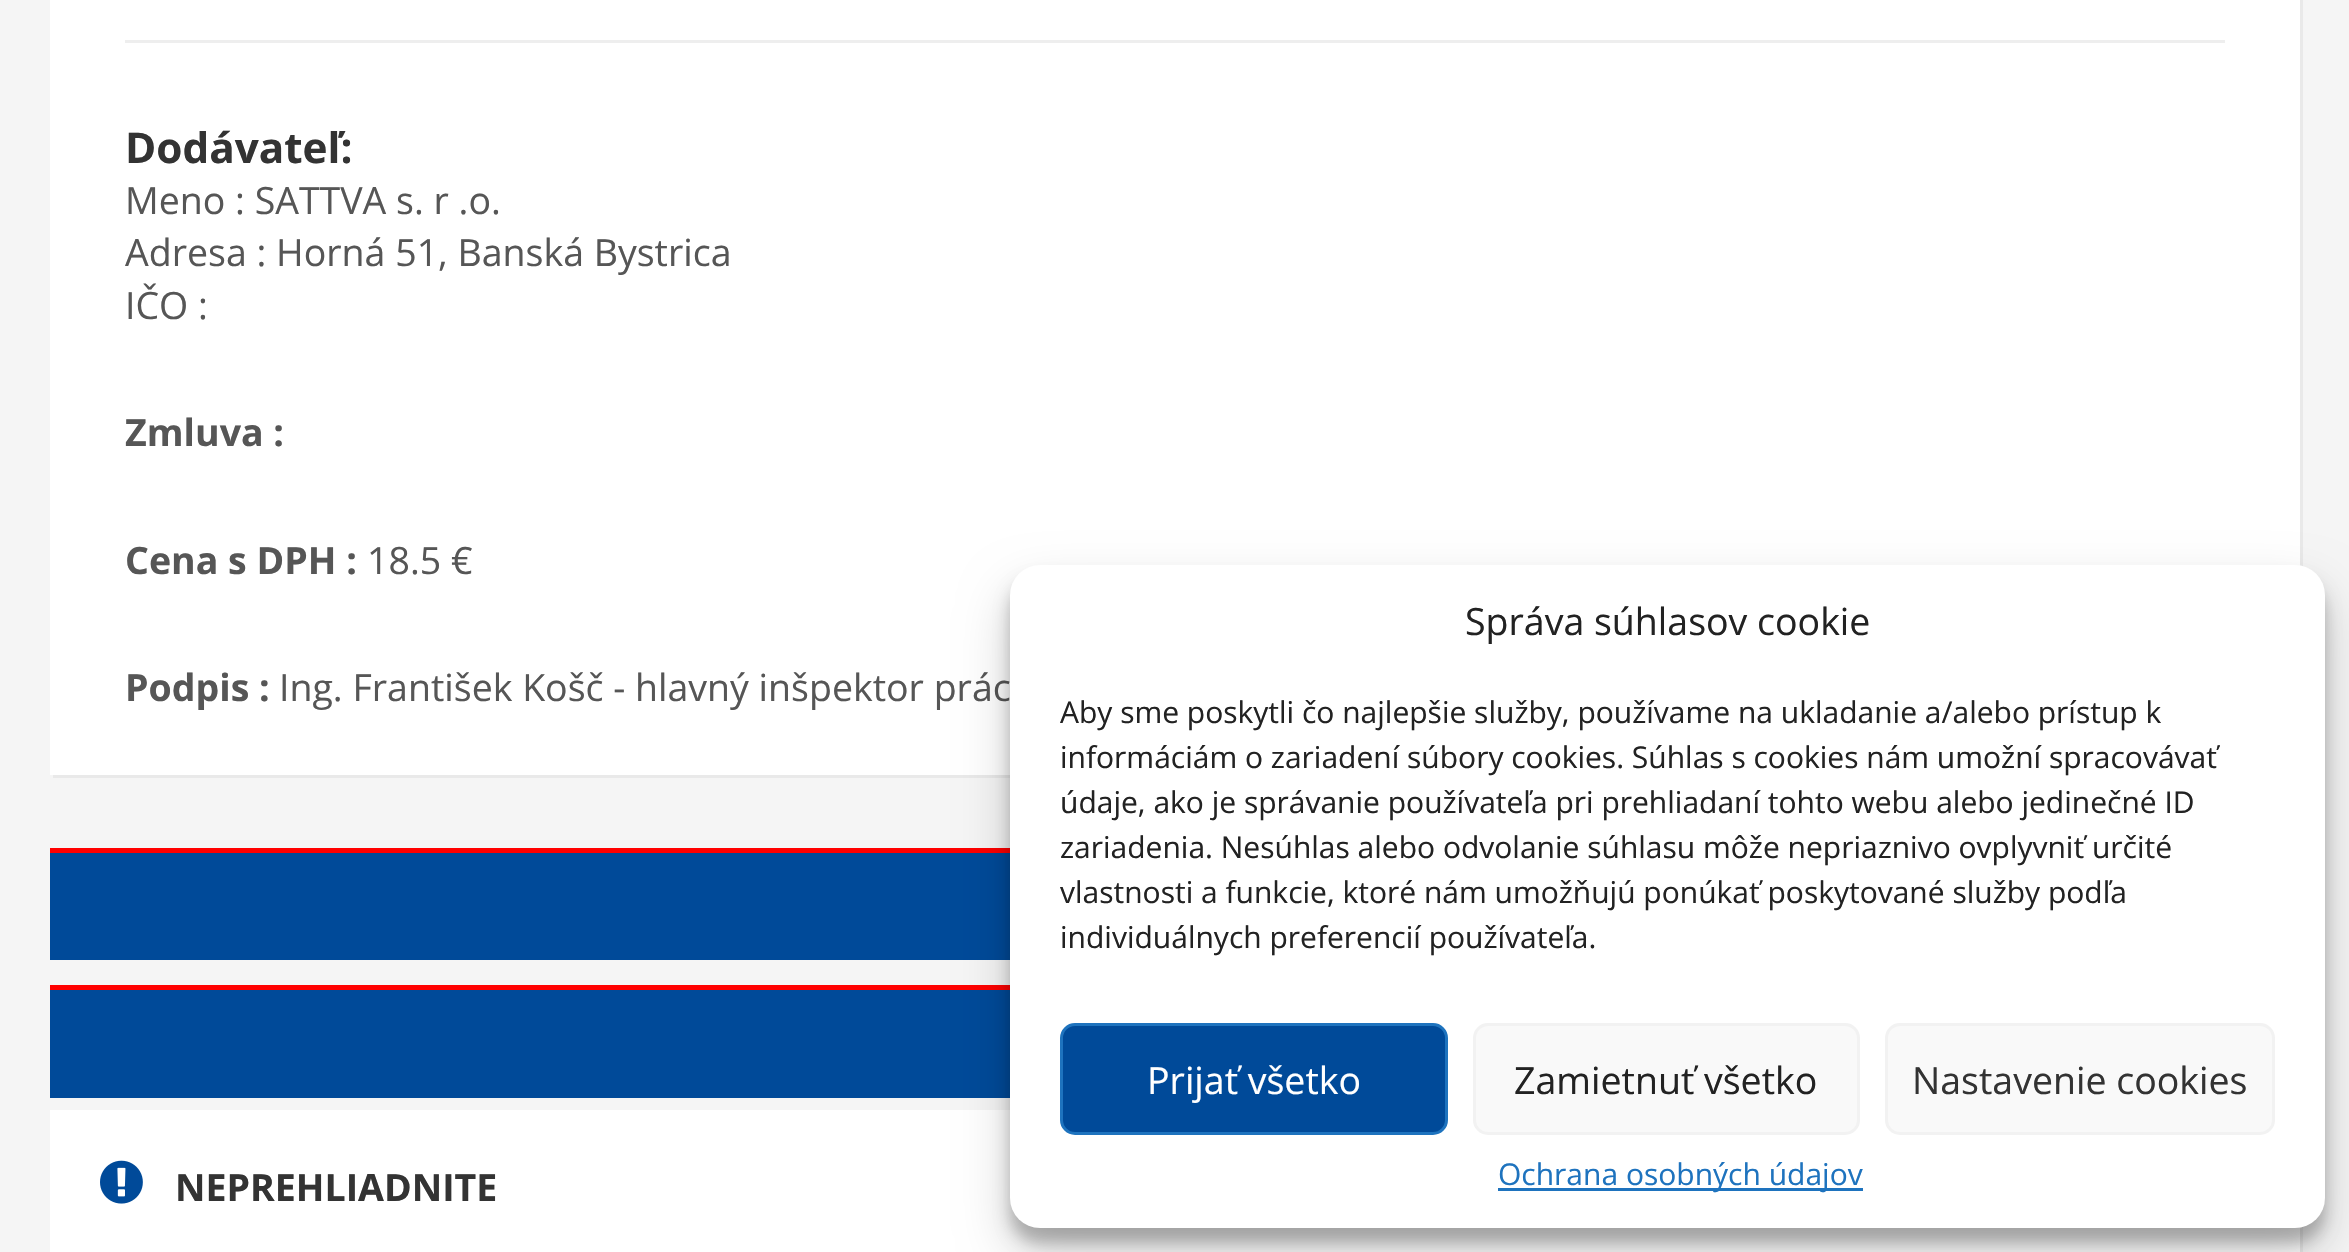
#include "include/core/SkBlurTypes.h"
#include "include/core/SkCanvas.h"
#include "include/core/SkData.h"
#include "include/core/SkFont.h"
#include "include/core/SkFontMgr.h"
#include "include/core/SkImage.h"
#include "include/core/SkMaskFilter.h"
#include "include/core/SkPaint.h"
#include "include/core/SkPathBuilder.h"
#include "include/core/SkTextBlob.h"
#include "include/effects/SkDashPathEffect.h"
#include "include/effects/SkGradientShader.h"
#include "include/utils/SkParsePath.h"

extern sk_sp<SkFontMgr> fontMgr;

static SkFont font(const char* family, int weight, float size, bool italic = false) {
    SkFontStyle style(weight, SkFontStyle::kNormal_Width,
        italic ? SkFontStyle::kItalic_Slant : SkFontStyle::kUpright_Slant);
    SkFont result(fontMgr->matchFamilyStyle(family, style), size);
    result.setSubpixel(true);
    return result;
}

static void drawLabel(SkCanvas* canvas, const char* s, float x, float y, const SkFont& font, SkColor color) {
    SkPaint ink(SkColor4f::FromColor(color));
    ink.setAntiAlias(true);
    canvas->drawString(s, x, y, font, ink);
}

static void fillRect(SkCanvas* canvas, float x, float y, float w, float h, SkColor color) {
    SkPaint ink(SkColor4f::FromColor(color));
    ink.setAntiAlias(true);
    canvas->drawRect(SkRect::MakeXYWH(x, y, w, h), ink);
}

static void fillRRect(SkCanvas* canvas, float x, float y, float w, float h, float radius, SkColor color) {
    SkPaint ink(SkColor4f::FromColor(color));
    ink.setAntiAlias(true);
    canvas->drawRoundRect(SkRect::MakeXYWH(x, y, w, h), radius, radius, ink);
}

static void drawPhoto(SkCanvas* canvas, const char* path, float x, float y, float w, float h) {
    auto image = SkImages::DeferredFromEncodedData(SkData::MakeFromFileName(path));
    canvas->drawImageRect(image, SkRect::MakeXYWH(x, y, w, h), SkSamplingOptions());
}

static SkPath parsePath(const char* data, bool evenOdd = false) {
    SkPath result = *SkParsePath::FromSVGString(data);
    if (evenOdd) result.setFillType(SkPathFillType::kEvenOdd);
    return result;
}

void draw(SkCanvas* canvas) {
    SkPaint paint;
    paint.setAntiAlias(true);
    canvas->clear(0xFFF5F5F5);
    paint.setColor(0xFFE9E9E9);
    canvas->drawPath(parsePath("M53 775V778H2303V-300H2300V775Z"), paint);
    fillRect(canvas, 50, 0, 2250, 775, 0xFFFFFFFF);
    fillRect(canvas, 125, 40, 2100, 3, 0xFFEEEEEE);
    SkFont font1 = font("Open Sans", 700, 42.25f);
    drawLabel(canvas, "Dodávateľ:", 125, 163, font1, 0xFF333333);
    SkFont font2 = font("Open Sans", 400, 37.5f);
    drawLabel(canvas, "Meno : SATTVA s. r .o.", 125, 214, font2, 0xFF565656);
    drawLabel(canvas, "Adresa : Horná 51, Banská Bystrica", 125, 266, font2, 0xFF565656);
    drawLabel(canvas, "IČO :", 125, 319, font2, 0xFF565656);
    SkFont font3 = font("Open Sans", 700, 37.5f);
    drawLabel(canvas, "Zmluva :", 125, 446, font3, 0xFF565656);
    drawLabel(canvas, "Cena s DPH :", 125, 574, font3, 0xFF565656);
    drawLabel(canvas, "18.5 €", 367, 574, font2, 0xFF565656);
    drawLabel(canvas, "Podpis :", 125, 701, font3, 0xFF565656);
    drawLabel(canvas, "Ing. František Košč - hlavný inšpektor prác", 279, 701, font2, 0xFF565656);
    fillRect(canvas, 50, 853, 960, 107, 0xFF004A99);
    fillRect(canvas, 50, 848, 960, 5, 0xFFFF0000);
    fillRect(canvas, 50, 990, 960, 108, 0xFF004A99);
    fillRect(canvas, 50, 985, 960, 5, 0xFFFF0000);
    canvas->drawPath(parsePath("M53 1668V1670H2303V1113H2300V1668Z"), paint);
    fillRect(canvas, 50, 1110, 2250, 142, 0xFFFFFFFF);
    drawPhoto(canvas, "assets/img1.png", 100, 1160, 43, 44);
    drawLabel(canvas, "NEPREHLIADNITE", 175, 1201, font3, 0xFF333333);
    paint.setColor(0x3B000000);
    paint.setMaskFilter(SkMaskFilter::MakeBlur(kNormal_SkBlurStyle, 7.5f));
    canvas->drawRoundRect(SkRect::MakeXYWH(1010, 580, 1315, 663), 30, 30, paint);
    paint.setMaskFilter(nullptr);
    paint.setColor(0x30000000);
    paint.setMaskFilter(SkMaskFilter::MakeBlur(kNormal_SkBlurStyle, 25));
    canvas->drawRoundRect(SkRect::MakeXYWH(1010, 590, 1315, 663), 30, 30, paint);
    paint.setMaskFilter(nullptr);
    fillRRect(canvas, 1010, 565, 1315, 663, 30, 0xFFFFFFFF);
    drawLabel(canvas, "Správa súhlasov cookie", 1465, 635, font2, 0xFF222222);
    SkFont font4 = font("Open Sans", 400, 30);
    drawLabel(canvas, "Aby sme poskytli čo najlepšie služby, používame na ukladanie a/alebo prístup k", 1060, 723, font4, 0xFF222222);
    drawLabel(canvas, "informáciám o zariadení súbory cookies. Súhlas s cookies nám umožní spracovávať", 1060, 768, font4, 0xFF222222);
    drawLabel(canvas, "údaje, ako je správanie používateľa pri prehliadaní tohto webu alebo jedinečné ID", 1060, 813, font4, 0xFF222222);
    drawLabel(canvas, "zariadenia. Nesúhlas alebo odvolanie súhlasu môže nepriaznivo ovplyvniť určité", 1060, 858, font4, 0xFF222222);
    drawLabel(canvas, "vlastnosti a funkcie, ktoré nám umožňujú ponúkať poskytované služby podľa", 1060, 903, font4, 0xFF222222);
    drawLabel(canvas, "individuálnych preferencií používateľa.", 1060, 948, font4, 0xFF222222);
    paint.setColor(0xFF004A99);
    canvas->drawRoundRect(SkRect::MakeXYWH(1061.5f, 1024.5f, 385, 109), 13.5f, 13.5f, paint);
    paint.setStroke(true);
    paint.setStrokeWidth(3);
    paint.setColor(0xFF1E73BE);
    canvas->drawRoundRect(SkRect::MakeXYWH(1061.5f, 1024.5f, 385, 109), 13.5f, 13.5f, paint);
    drawLabel(canvas, "Prijať všetko", 1147, 1094, font2, 0xFFFFFFFF);
    paint.setStroke(false);
    paint.setColor(0xFFF9F9F9);
    canvas->drawRoundRect(SkRect::MakeXYWH(1474.5f, 1024.5f, 384, 109), 13.5f, 13.5f, paint);
    paint.setStroke(true);
    paint.setColor(0xFFF2F2F2);
    canvas->drawRoundRect(SkRect::MakeXYWH(1474.5f, 1024.5f, 384, 109), 13.5f, 13.5f, paint);
    drawLabel(canvas, "Zamietnuť všetko", 1514, 1094, font2, 0xFF222222);
    paint.setStroke(false);
    paint.setColor(0xFFF9F9F9);
    canvas->drawRoundRect(SkRect::MakeXYWH(1886.5f, 1024.5f, 387, 109), 13.5f, 13.5f, paint);
    paint.setStroke(true);
    paint.setColor(0xFFF2F2F2);
    canvas->drawRoundRect(SkRect::MakeXYWH(1886.5f, 1024.5f, 387, 109), 13.5f, 13.5f, paint);
    drawLabel(canvas, "Nastavenie cookies", 1912, 1094, font2, 0xFF333333);
    fillRect(canvas, 1498, 1188, 365, 3, 0xFF1E73BE);
    drawLabel(canvas, "Ochrana osobných údajov", 1498, 1185, font4, 0xFF1E73BE);
}
